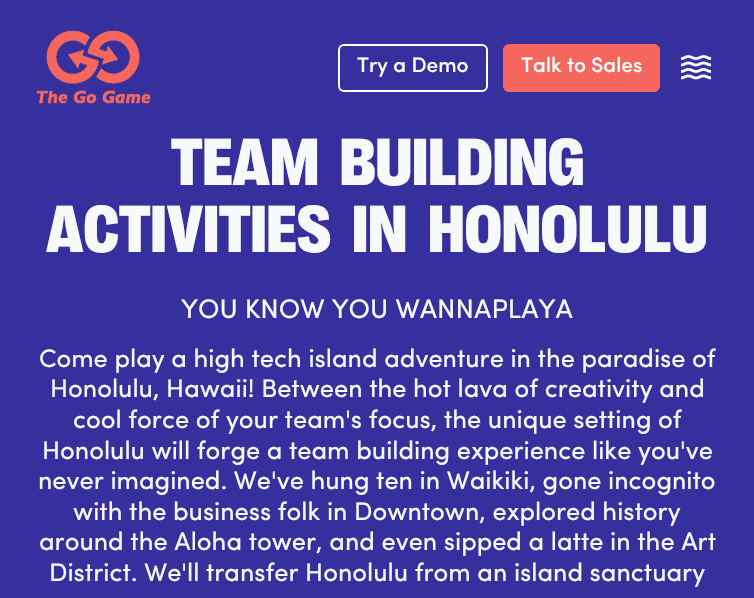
#include "include/core/SkBlurTypes.h"
#include "include/core/SkCanvas.h"
#include "include/core/SkData.h"
#include "include/core/SkFont.h"
#include "include/core/SkFontMgr.h"
#include "include/core/SkImage.h"
#include "include/core/SkMaskFilter.h"
#include "include/core/SkPaint.h"
#include "include/core/SkPathBuilder.h"
#include "include/core/SkTextBlob.h"
#include "include/effects/SkDashPathEffect.h"
#include "include/effects/SkGradientShader.h"
#include "include/utils/SkParsePath.h"

extern sk_sp<SkFontMgr> fontMgr;

static SkFont font(const char* family, int weight, float size, bool italic = false) {
    SkFontStyle style(weight, SkFontStyle::kNormal_Width,
        italic ? SkFontStyle::kItalic_Slant : SkFontStyle::kUpright_Slant);
    SkFont result(fontMgr->matchFamilyStyle(family, style), size);
    result.setSubpixel(true);
    return result;
}

static void drawLabel(SkCanvas* canvas, const char* s, float x, float y, const SkFont& font, SkColor color) {
    SkPaint ink(SkColor4f::FromColor(color));
    ink.setAntiAlias(true);
    canvas->drawString(s, x, y, font, ink);
}

static void drawTracked(SkCanvas* canvas, const char* s, float x, float y, const SkFont& font, const SkPaint& ink, float letter, float word) {
    std::vector<SkGlyphID> glyphs(font.countText(s, strlen(s), SkTextEncoding::kUTF8));
    std::vector<float> xs(glyphs.size());
    font.textToGlyphs(s, strlen(s), SkTextEncoding::kUTF8, glyphs);
    font.getXPos(glyphs, xs, x);
    float extra = 0;
    for (size_t i = 0; i < glyphs.size(); i++) {
        xs[i] += extra;
        extra += letter + word * (glyphs[i] == font.unicharToGlyph(' '));
    }
    canvas->drawTextBlob(SkTextBlob::MakeFromPosHGlyphs(glyphs, xs, y, font), 0, 0, ink);
}

static void fillRRect(SkCanvas* canvas, float x, float y, float w, float h, float radius, SkColor color) {
    SkPaint ink(SkColor4f::FromColor(color));
    ink.setAntiAlias(true);
    canvas->drawRoundRect(SkRect::MakeXYWH(x, y, w, h), radius, radius, ink);
}

static void drawPhoto(SkCanvas* canvas, const char* path, float x, float y, float w, float h) {
    auto image = SkImages::DeferredFromEncodedData(SkData::MakeFromFileName(path));
    canvas->drawImageRect(image, SkRect::MakeXYWH(x, y, w, h), SkSamplingOptions());
}

void draw(SkCanvas* canvas) {
    SkPaint paint;
    paint.setAntiAlias(true);
    canvas->clear(0xFF36309E);
    drawPhoto(canvas, "assets/img1.png", 36, 30, 115, 74);
    paint.setStroke(true);
    paint.setStrokeWidth(2);
    paint.setColor(0xFFFFFFFF);
    canvas->drawRoundRect(SkRect::MakeXYWH(339, 45, 148, 46), 5, 5, paint);
    SkFont font1 = font("Sofia", 500, 21);
    drawLabel(canvas, "Try a Demo", 357, 72, font1, 0xFFFFFFFF);
    fillRRect(canvas, 503, 44, 157, 48, 6, 0xFFF5665D);
    drawLabel(canvas, "Talk to Sales", 521, 72, font1, 0xFFFFFFFF);
    drawPhoto(canvas, "assets/img2.png", 681, 55, 30, 25);
    SkFont font2 = font("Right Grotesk", 900, 67.5f);
    paint.setStroke(false);
    paint.setColor(0xFFF8F9FB);
    drawTracked(canvas, "TEAM BUILDING", 171, 185, font2, paint, 0, 12);
    drawTracked(canvas, "ACTIVITIES IN HONOLULU", 46, 252, font2, paint, 0, 12);
    SkFont font3 = font("Sofia", 400, 27);
    drawLabel(canvas, "YOU KNOW YOU WANNAPLAYA", 181, 318, font3, 0xFFF8F9FB);
    SkFont font4 = font("Sofia", 400, 25.5f);
    drawLabel(canvas, "Come play a high tech island adventure in the paradise of", 39, 367, font4, 0xFFF8F9FB);
    drawLabel(canvas, "Honolulu, Hawaii! Between the hot lava of creativity and", 50, 397, font4, 0xFFF8F9FB);
    drawLabel(canvas, "cool force of your team's focus, the unique setting of", 73, 428, font4, 0xFFF8F9FB);
    drawLabel(canvas, "Honolulu will forge a team building experience like you've", 42, 459, font4, 0xFFF8F9FB);
    drawLabel(canvas, "never imagined. We've hung ten in Waikiki, gone incognito", 38, 489, font4, 0xFFF8F9FB);
    drawLabel(canvas, "with the business folk in Downtown, explored history", 73, 520, font4, 0xFFF8F9FB);
    drawLabel(canvas, "around the Aloha tower, and even sipped a latte in the Art", 39, 550, font4, 0xFFF8F9FB);
    drawLabel(canvas, "District. We'll transfer Honolulu from an island sanctuary", 49, 581, font4, 0xFFF8F9FB);
}
